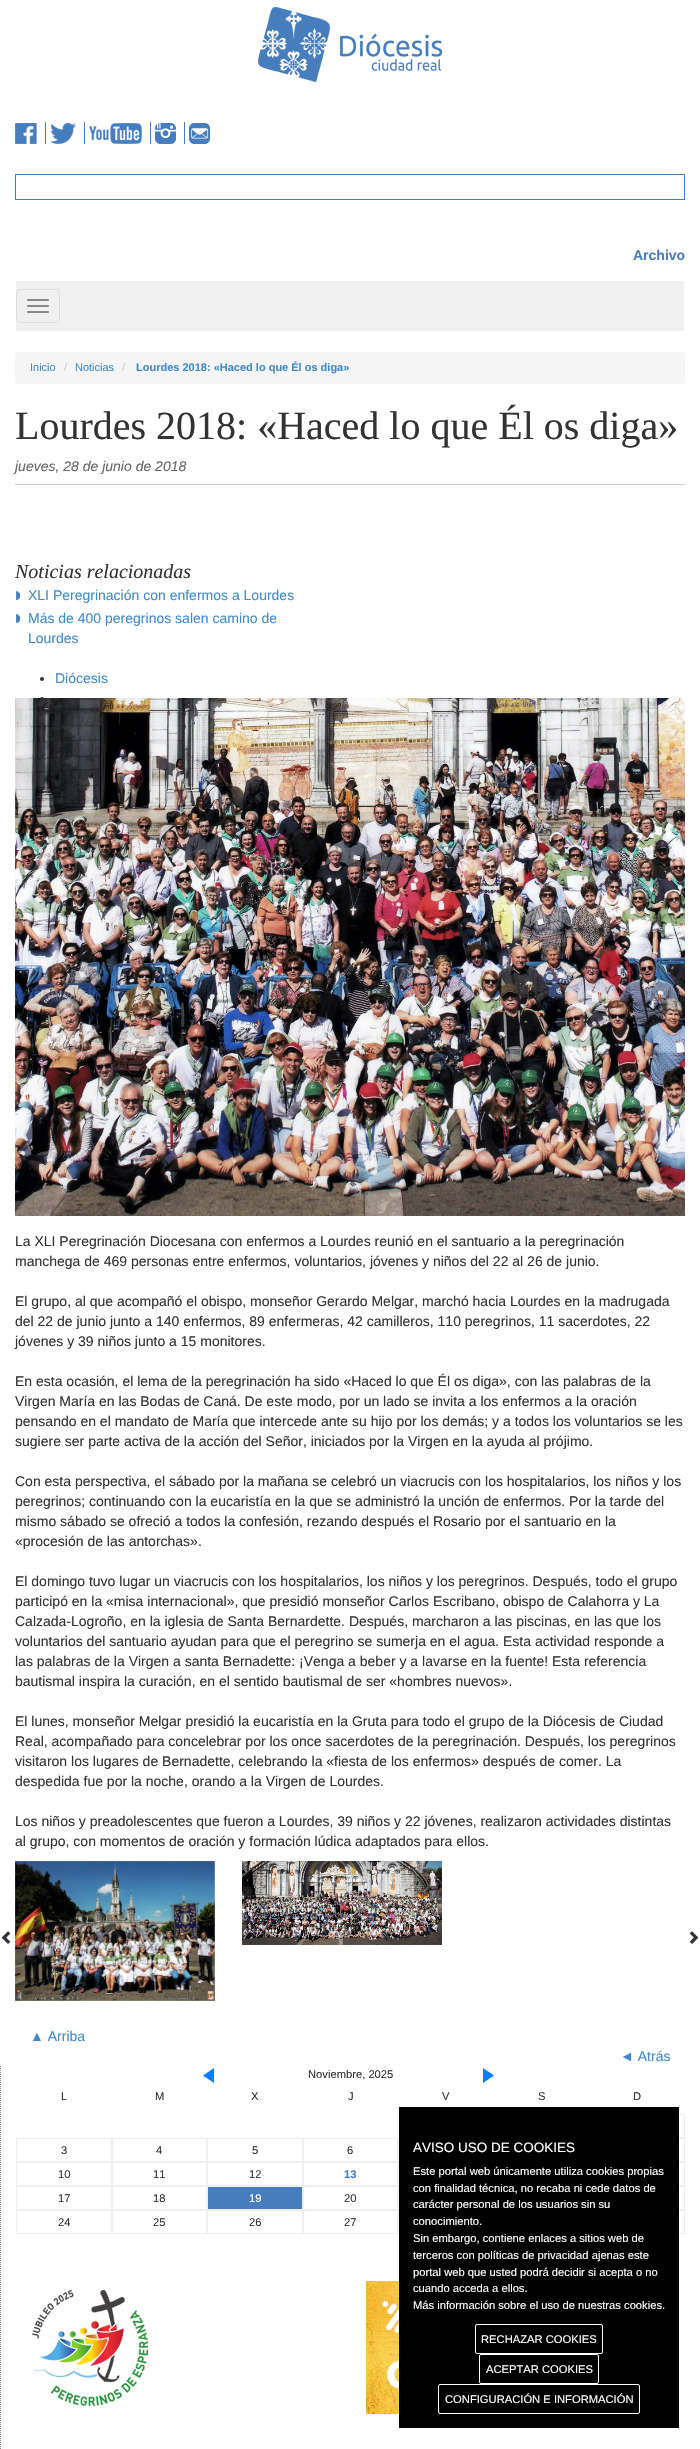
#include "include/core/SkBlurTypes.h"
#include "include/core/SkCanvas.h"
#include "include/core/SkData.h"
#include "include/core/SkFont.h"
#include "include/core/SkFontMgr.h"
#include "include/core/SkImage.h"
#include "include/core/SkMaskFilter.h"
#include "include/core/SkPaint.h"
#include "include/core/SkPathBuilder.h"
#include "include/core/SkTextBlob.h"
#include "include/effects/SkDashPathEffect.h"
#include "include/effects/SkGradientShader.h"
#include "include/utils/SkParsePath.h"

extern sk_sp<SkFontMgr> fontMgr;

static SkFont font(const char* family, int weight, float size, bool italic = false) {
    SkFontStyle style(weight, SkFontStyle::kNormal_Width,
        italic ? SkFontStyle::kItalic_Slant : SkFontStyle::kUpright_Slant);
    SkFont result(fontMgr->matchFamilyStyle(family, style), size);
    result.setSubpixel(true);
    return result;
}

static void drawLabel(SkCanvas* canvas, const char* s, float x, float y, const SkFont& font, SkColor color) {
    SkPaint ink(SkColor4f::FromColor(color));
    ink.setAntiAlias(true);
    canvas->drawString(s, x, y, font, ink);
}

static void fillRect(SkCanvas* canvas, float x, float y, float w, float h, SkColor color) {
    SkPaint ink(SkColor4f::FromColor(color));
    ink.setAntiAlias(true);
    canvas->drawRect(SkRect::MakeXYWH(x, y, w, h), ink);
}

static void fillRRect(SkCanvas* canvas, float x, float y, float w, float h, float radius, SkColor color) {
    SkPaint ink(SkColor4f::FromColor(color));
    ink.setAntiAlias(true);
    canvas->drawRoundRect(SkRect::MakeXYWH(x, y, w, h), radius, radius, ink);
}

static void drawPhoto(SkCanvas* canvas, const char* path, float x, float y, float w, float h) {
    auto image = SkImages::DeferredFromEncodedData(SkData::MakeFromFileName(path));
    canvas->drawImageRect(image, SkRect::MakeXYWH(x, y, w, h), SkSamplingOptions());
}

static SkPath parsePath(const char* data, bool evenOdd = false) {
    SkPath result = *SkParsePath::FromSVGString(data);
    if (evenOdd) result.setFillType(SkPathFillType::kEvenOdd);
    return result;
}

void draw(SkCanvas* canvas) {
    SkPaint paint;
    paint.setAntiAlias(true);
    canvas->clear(0xFFFFFFFF);
    drawPhoto(canvas, "assets/img1.png", 258, 7, 184, 75);
    fillRect(canvas, 45, 122, 1, 22, 0xFF467DBD);
    drawPhoto(canvas, "assets/img2.png", 15, 123, 22, 21);
    fillRect(canvas, 84, 122, 1, 22, 0xFF467DBD);
    drawPhoto(canvas, "assets/img3.png", 50, 123, 26, 21);
    fillRect(canvas, 150, 122, 1, 22, 0xFF467DBD);
    drawPhoto(canvas, "assets/img4.png", 89, 123, 53, 21);
    fillRect(canvas, 184, 122, 1, 22, 0xFF467DBD);
    drawPhoto(canvas, "assets/img5.png", 155, 123, 21, 21);
    drawPhoto(canvas, "assets/img6.png", 189, 123, 21, 21);
    paint.setStroke(true);
    paint.setStrokeWidth(1);
    paint.setColor(0xFF467DBD);
    canvas->drawRect(SkRect::MakeXYWH(15.5f, 174.5f, 669, 25), paint);
    SkFont font1 = font("Liberation Sans", 700, 14);
    drawLabel(canvas, "Archivo", 633, 260, font1, 0xFF467DBD);
    fillRect(canvas, 16, 281, 668, 50, 0xFFF0F0F0);
    paint.setColor(0xFFDDDDDD);
    canvas->drawRoundRect(SkRect::MakeXYWH(16.5f, 289.5f, 43, 33), 3.5f, 3.5f, paint);
    fillRRect(canvas, 27, 299, 22, 2, 1, 0xFF888888);
    fillRRect(canvas, 27, 305, 22, 2, 1, 0xFF888888);
    fillRRect(canvas, 27, 311, 22, 2, 1, 0xFF888888);
    fillRRect(canvas, 15, 352, 670, 32, 4, 0xFFF5F5F5);
    SkFont font2 = font("Liberation Sans", 400, 11);
    drawLabel(canvas, "Inicio", 30, 371, font2, 0xFF428BCA);
    drawLabel(canvas, "/", 64, 371, font2, 0xFFCCCCCC);
    drawLabel(canvas, "Noticias", 75, 371, font2, 0xFF428BCA);
    drawLabel(canvas, "/", 122, 371, font2, 0xFFCCCCCC);
    SkFont font3 = font("Liberation Sans", 700, 11);
    drawLabel(canvas, "Lourdes 2018: «Haced lo que Él os diga»", 136, 371, font3, 0xFF428BCA);
    SkFont font4 = font("Liberation Serif", 400, 40);
    drawLabel(canvas, "Lourdes 2018: «Haced lo que Él os diga»", 15, 439, font4, 0xFF333333);
    fillRect(canvas, 15, 484, 670, 1, 0xFFCCCCCC);
    SkFont font5 = font("Liberation Sans", 400, 14, true);
    drawLabel(canvas, "jueves, 28 de junio de 2018", 15, 471, font5, 0xFF666666);
    SkFont font6 = font("Liberation Serif", 400, 20, true);
    drawLabel(canvas, "Noticias relacionadas", 15, 578, font6, 0xFF333333);
    drawPhoto(canvas, "assets/img7.png", 16, 591, 4, 9);
    SkFont font7 = font("Liberation Sans", 400, 14);
    drawLabel(canvas, "XLI Peregrinación con enfermos a Lourdes", 28, 600, font7, 0xFF428BCA);
    drawPhoto(canvas, "assets/img7.png", 16, 614, 4, 9);
    drawLabel(canvas, "Más de 400 peregrinos salen camino de", 28, 623, font7, 0xFF428BCA);
    drawLabel(canvas, "Lourdes", 28, 643, font7, 0xFF428BCA);
    paint.setStroke(false);
    paint.setColor(0xFF333333);
    canvas->drawCircle(42, 679, 2, paint);
    drawLabel(canvas, "Diócesis", 55, 683, font7, 0xFF428BCA);
    canvas->drawCircle(42, 699, 2, paint);
    drawPhoto(canvas, "assets/img8.png", 15, 698, 670, 518);
    drawLabel(canvas, "La XLI Peregrinación Diocesana con enfermos a Lourdes reunió en el santuario a la peregrinación", 15, 1246, font7, 0xFF333333);
    drawLabel(canvas, "manchega de 469 personas entre enfermos, voluntarios, jóvenes y niños del 22 al 26 de junio.", 15, 1266, font7, 0xFF333333);
    drawLabel(canvas, "El grupo, al que acompañó el obispo, monseñor Gerardo Melgar, marchó hacia Lourdes en la madrugada", 15, 1306, font7, 0xFF333333);
    drawLabel(canvas, "del 22 de junio junto a 140 enfermos, 89 enfermeras, 42 camilleros, 110 peregrinos, 11 sacerdotes, 22", 15, 1326, font7, 0xFF333333);
    drawLabel(canvas, "jóvenes y 39 niños junto a 15 monitores.", 15, 1346, font7, 0xFF333333);
    drawLabel(canvas, "En esta ocasión, el lema de la peregrinación ha sido «Haced lo que Él os diga», con las palabras de la", 15, 1386, font7, 0xFF333333);
    drawLabel(canvas, "Virgen María en las Bodas de Caná. De este modo, por un lado se invita a los enfermos a la oración", 15, 1406, font7, 0xFF333333);
    drawLabel(canvas, "pensando en el mandato de María que intercede ante su hijo por los demás; y a todos los voluntarios se les", 15, 1426, font7, 0xFF333333);
    drawLabel(canvas, "sugiere ser parte activa de la acción del Señor, iniciados por la Virgen en la ayuda al prójimo.", 15, 1446, font7, 0xFF333333);
    drawLabel(canvas, "Con esta perspectiva, el sábado por la mañana se celebró un viacrucis con los hospitalarios, los niños y los", 15, 1486, font7, 0xFF333333);
    drawLabel(canvas, "peregrinos; continuando con la eucaristía en la que se administró la unción de enfermos. Por la tarde del", 15, 1506, font7, 0xFF333333);
    drawLabel(canvas, "mismo sábado se ofreció a todos la confesión, rezando después el Rosario por el santuario en la", 15, 1526, font7, 0xFF333333);
    drawLabel(canvas, "«procesión de las antorchas».", 15, 1546, font7, 0xFF333333);
    drawLabel(canvas, "El domingo tuvo lugar un viacrucis con los hospitalarios, los niños y los peregrinos. Después, todo el grupo", 15, 1586, font7, 0xFF333333);
    drawLabel(canvas, "participó en la «misa internacional», que presidió monseñor Carlos Escribano, obispo de Calahorra y La", 15, 1606, font7, 0xFF333333);
    drawLabel(canvas, "Calzada-Logroño, en la iglesia de Santa Bernardette. Después, marcharon a las piscinas, en las que los", 15, 1626, font7, 0xFF333333);
    drawLabel(canvas, "voluntarios del santuario ayudan para que el peregrino se sumerja en el agua. Esta actividad responde a", 15, 1646, font7, 0xFF333333);
    drawLabel(canvas, "las palabras de la Virgen a santa Bernadette: ¡Venga a beber y a lavarse en la fuente! Esta referencia", 15, 1666, font7, 0xFF333333);
    drawLabel(canvas, "bautismal inspira la curación, en el sentido bautismal de ser «hombres nuevos».", 15, 1686, font7, 0xFF333333);
    drawLabel(canvas, "El lunes, monseñor Melgar presidió la eucaristía en la Gruta para todo el grupo de la Diócesis de Ciudad", 15, 1726, font7, 0xFF333333);
    drawLabel(canvas, "Real, acompañado para concelebrar por los once sacerdotes de la peregrinación. Después, los peregrinos", 15, 1746, font7, 0xFF333333);
    drawLabel(canvas, "visitaron los lugares de Bernadette, celebrando la «fiesta de los enfermos» después de comer. La", 15, 1766, font7, 0xFF333333);
    drawLabel(canvas, "despedida fue por la noche, orando a la Virgen de Lourdes.", 15, 1786, font7, 0xFF333333);
    drawLabel(canvas, "Los niños y preadolescentes que fueron a Lourdes, 39 niños y 22 jóvenes, realizaron actividades distintas", 15, 1826, font7, 0xFF333333);
    drawLabel(canvas, "al grupo, con momentos de oración y formación lúdica adaptados para ellos.", 15, 1846, font7, 0xFF333333);
    drawPhoto(canvas, "assets/img9.png", 15, 1861, 200, 140);
    drawPhoto(canvas, "assets/img10.png", 242, 1861, 200, 84);
    drawPhoto(canvas, "assets/img11.png", 1, 1931, 10, 13);
    drawPhoto(canvas, "assets/img12.png", 689, 1931, 10, 13);
    drawLabel(canvas, "▲ Arriba", 30, 2041, font7, 0xFF428BCA);
    drawLabel(canvas, "◄ Atrás", 620, 2061, font7, 0xFF428BCA);
    paint.setStroke(true);
    paint.setColor(0xFF8B8B8B);
    paint.setPathEffect(SkDashPathEffect::Make({{1, 1}}, 0));
    canvas->drawPath(parsePath("M.5 2066V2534"), paint);
    paint.setPathEffect(nullptr);
    paint.setStroke(false);
    paint.setColor(0xFF0080FF);
    canvas->drawPath(parsePath("M203 2075.5L214 2068V2083"), paint);
    SkFont font8 = font("Liberation Sans", 400, 11.2f);
    drawLabel(canvas, "Noviembre, 2025", 308, 2078, font8, 0xFF333333);
    canvas->drawPath(parsePath("M483 2068L494 2075.5L483 2083"), paint);
    drawLabel(canvas, "L", 61, 2100, font8, 0xFF333333);
    drawLabel(canvas, "M", 155, 2100, font8, 0xFF333333);
    drawLabel(canvas, "X", 251, 2100, font8, 0xFF333333);
    drawLabel(canvas, "J", 348, 2100, font8, 0xFF333333);
    drawLabel(canvas, "V", 442, 2100, font8, 0xFF333333);
    drawLabel(canvas, "S", 538, 2100, font8, 0xFF333333);
    drawLabel(canvas, "D", 633, 2100, font8, 0xFF333333);
    paint.setStroke(true);
    paint.setColor(0xFFEEEEEE);
    canvas->drawRect(SkRect::MakeXYWH(589.5f, 2114.5f, 95, 23), paint);
    canvas->drawRect(SkRect::MakeXYWH(16.5f, 2138.5f, 95, 23), paint);
    drawLabel(canvas, "3", 61, 2154, font8, 0xFF333333);
    canvas->drawRect(SkRect::MakeXYWH(112.5f, 2138.5f, 94, 23), paint);
    drawLabel(canvas, "4", 156, 2154, font8, 0xFF333333);
    canvas->drawRect(SkRect::MakeXYWH(207.5f, 2138.5f, 95, 23), paint);
    drawLabel(canvas, "5", 252, 2154, font8, 0xFF333333);
    canvas->drawRect(SkRect::MakeXYWH(303.5f, 2138.5f, 94, 23), paint);
    drawLabel(canvas, "6", 347, 2154, font8, 0xFF333333);
    canvas->drawRect(SkRect::MakeXYWH(398.5f, 2138.5f, 95, 23), paint);
    canvas->drawRect(SkRect::MakeXYWH(589.5f, 2138.5f, 95, 23), paint);
    canvas->drawRect(SkRect::MakeXYWH(16.5f, 2162.5f, 95, 23), paint);
    drawLabel(canvas, "10", 58, 2178, font8, 0xFF333333);
    canvas->drawRect(SkRect::MakeXYWH(112.5f, 2162.5f, 94, 23), paint);
    drawLabel(canvas, "11", 153, 2178, font8, 0xFF333333);
    canvas->drawRect(SkRect::MakeXYWH(207.5f, 2162.5f, 95, 23), paint);
    drawLabel(canvas, "12", 249, 2178, font8, 0xFF333333);
    canvas->drawRect(SkRect::MakeXYWH(303.5f, 2162.5f, 94, 23), paint);
    SkFont font9 = font("Liberation Sans", 700, 11.2f);
    drawLabel(canvas, "13", 344, 2178, font9, 0xFF467DBD);
    canvas->drawRect(SkRect::MakeXYWH(398.5f, 2162.5f, 95, 23), paint);
    canvas->drawRect(SkRect::MakeXYWH(589.5f, 2162.5f, 95, 23), paint);
    canvas->drawRect(SkRect::MakeXYWH(16.5f, 2186.5f, 95, 23), paint);
    drawLabel(canvas, "17", 58, 2202, font8, 0xFF333333);
    canvas->drawRect(SkRect::MakeXYWH(112.5f, 2186.5f, 94, 23), paint);
    drawLabel(canvas, "18", 153, 2202, font8, 0xFF333333);
    canvas->drawRect(SkRect::MakeXYWH(207.5f, 2186.5f, 95, 23), paint);
    fillRect(canvas, 208, 2187, 94, 22, 0xFF467DBD);
    drawLabel(canvas, "19", 249, 2202, font8, 0xFFFFFFFF);
    canvas->drawRect(SkRect::MakeXYWH(303.5f, 2186.5f, 94, 23), paint);
    drawLabel(canvas, "20", 344, 2202, font8, 0xFF333333);
    canvas->drawRect(SkRect::MakeXYWH(398.5f, 2186.5f, 95, 23), paint);
    canvas->drawRect(SkRect::MakeXYWH(589.5f, 2186.5f, 95, 23), paint);
    canvas->drawRect(SkRect::MakeXYWH(16.5f, 2210.5f, 95, 23), paint);
    drawLabel(canvas, "24", 58, 2226, font8, 0xFF333333);
    canvas->drawRect(SkRect::MakeXYWH(112.5f, 2210.5f, 94, 23), paint);
    drawLabel(canvas, "25", 153, 2226, font8, 0xFF333333);
    canvas->drawRect(SkRect::MakeXYWH(207.5f, 2210.5f, 95, 23), paint);
    drawLabel(canvas, "26", 249, 2226, font8, 0xFF333333);
    canvas->drawRect(SkRect::MakeXYWH(303.5f, 2210.5f, 94, 23), paint);
    drawLabel(canvas, "27", 344, 2226, font8, 0xFF333333);
    canvas->drawRect(SkRect::MakeXYWH(398.5f, 2210.5f, 95, 23), paint);
    canvas->drawRect(SkRect::MakeXYWH(589.5f, 2210.5f, 95, 23), paint);
    drawPhoto(canvas, "assets/img13.png", 32, 2290, 116, 116);
    drawPhoto(canvas, "assets/img14.png", 366, 2281, 33, 133);
    fillRect(canvas, 399, 2107, 280, 321, 0xFF000000);
    SkFont font10 = font("Liberation Sans", 400, 13.5f);
    drawLabel(canvas, "AVISO USO DE COOKIES", 413, 2152, font10, 0xFFFFFFFF);
    drawLabel(canvas, "Este portal web únicamente utiliza cookies propias", 413, 2175, font8, 0xFFFFFFFF);
    drawLabel(canvas, "con finalidad técnica, no recaba ni cede datos de", 413, 2192, font8, 0xFFFFFFFF);
    drawLabel(canvas, "carácter personal de los usuarios sin su", 413, 2208, font8, 0xFFFFFFFF);
    drawLabel(canvas, "conocimiento.", 413, 2225, font8, 0xFFFFFFFF);
    drawLabel(canvas, "Sin embargo, contiene enlaces a sitios web de", 413, 2242, font8, 0xFFFFFFFF);
    drawLabel(canvas, "terceros con políticas de privacidad ajenas este", 413, 2259, font8, 0xFFFFFFFF);
    drawLabel(canvas, "portal web que usted podrá decidir si acepta o no", 413, 2276, font8, 0xFFFFFFFF);
    drawLabel(canvas, "cuando acceda a ellos.", 413, 2292, font8, 0xFFFFFFFF);
    drawLabel(canvas, "Más información sobre el uso de nuestras cookies.", 413, 2309, font8, 0xFFFFFFFF);
    paint.setColor(0xFFFFFFFF);
    canvas->drawRoundRect(SkRect::MakeXYWH(475.5f, 2324.5f, 127, 29), 1.5f, 1.5f, paint);
    drawLabel(canvas, "RECHAZAR COOKIES", 481, 2343, font8, 0xFFFFFFFF);
    canvas->drawRoundRect(SkRect::MakeXYWH(479.5f, 2354.5f, 119, 29), 1.5f, 1.5f, paint);
    drawLabel(canvas, "ACEPTAR COOKIES", 486, 2373, font8, 0xFFFFFFFF);
    canvas->drawRoundRect(SkRect::MakeXYWH(438.5f, 2384.5f, 201, 29), 1.5f, 1.5f, paint);
    drawLabel(canvas, "CONFIGURACIÓN E INFORMACIÓN", 445, 2403, font8, 0xFFFFFFFF);
}
